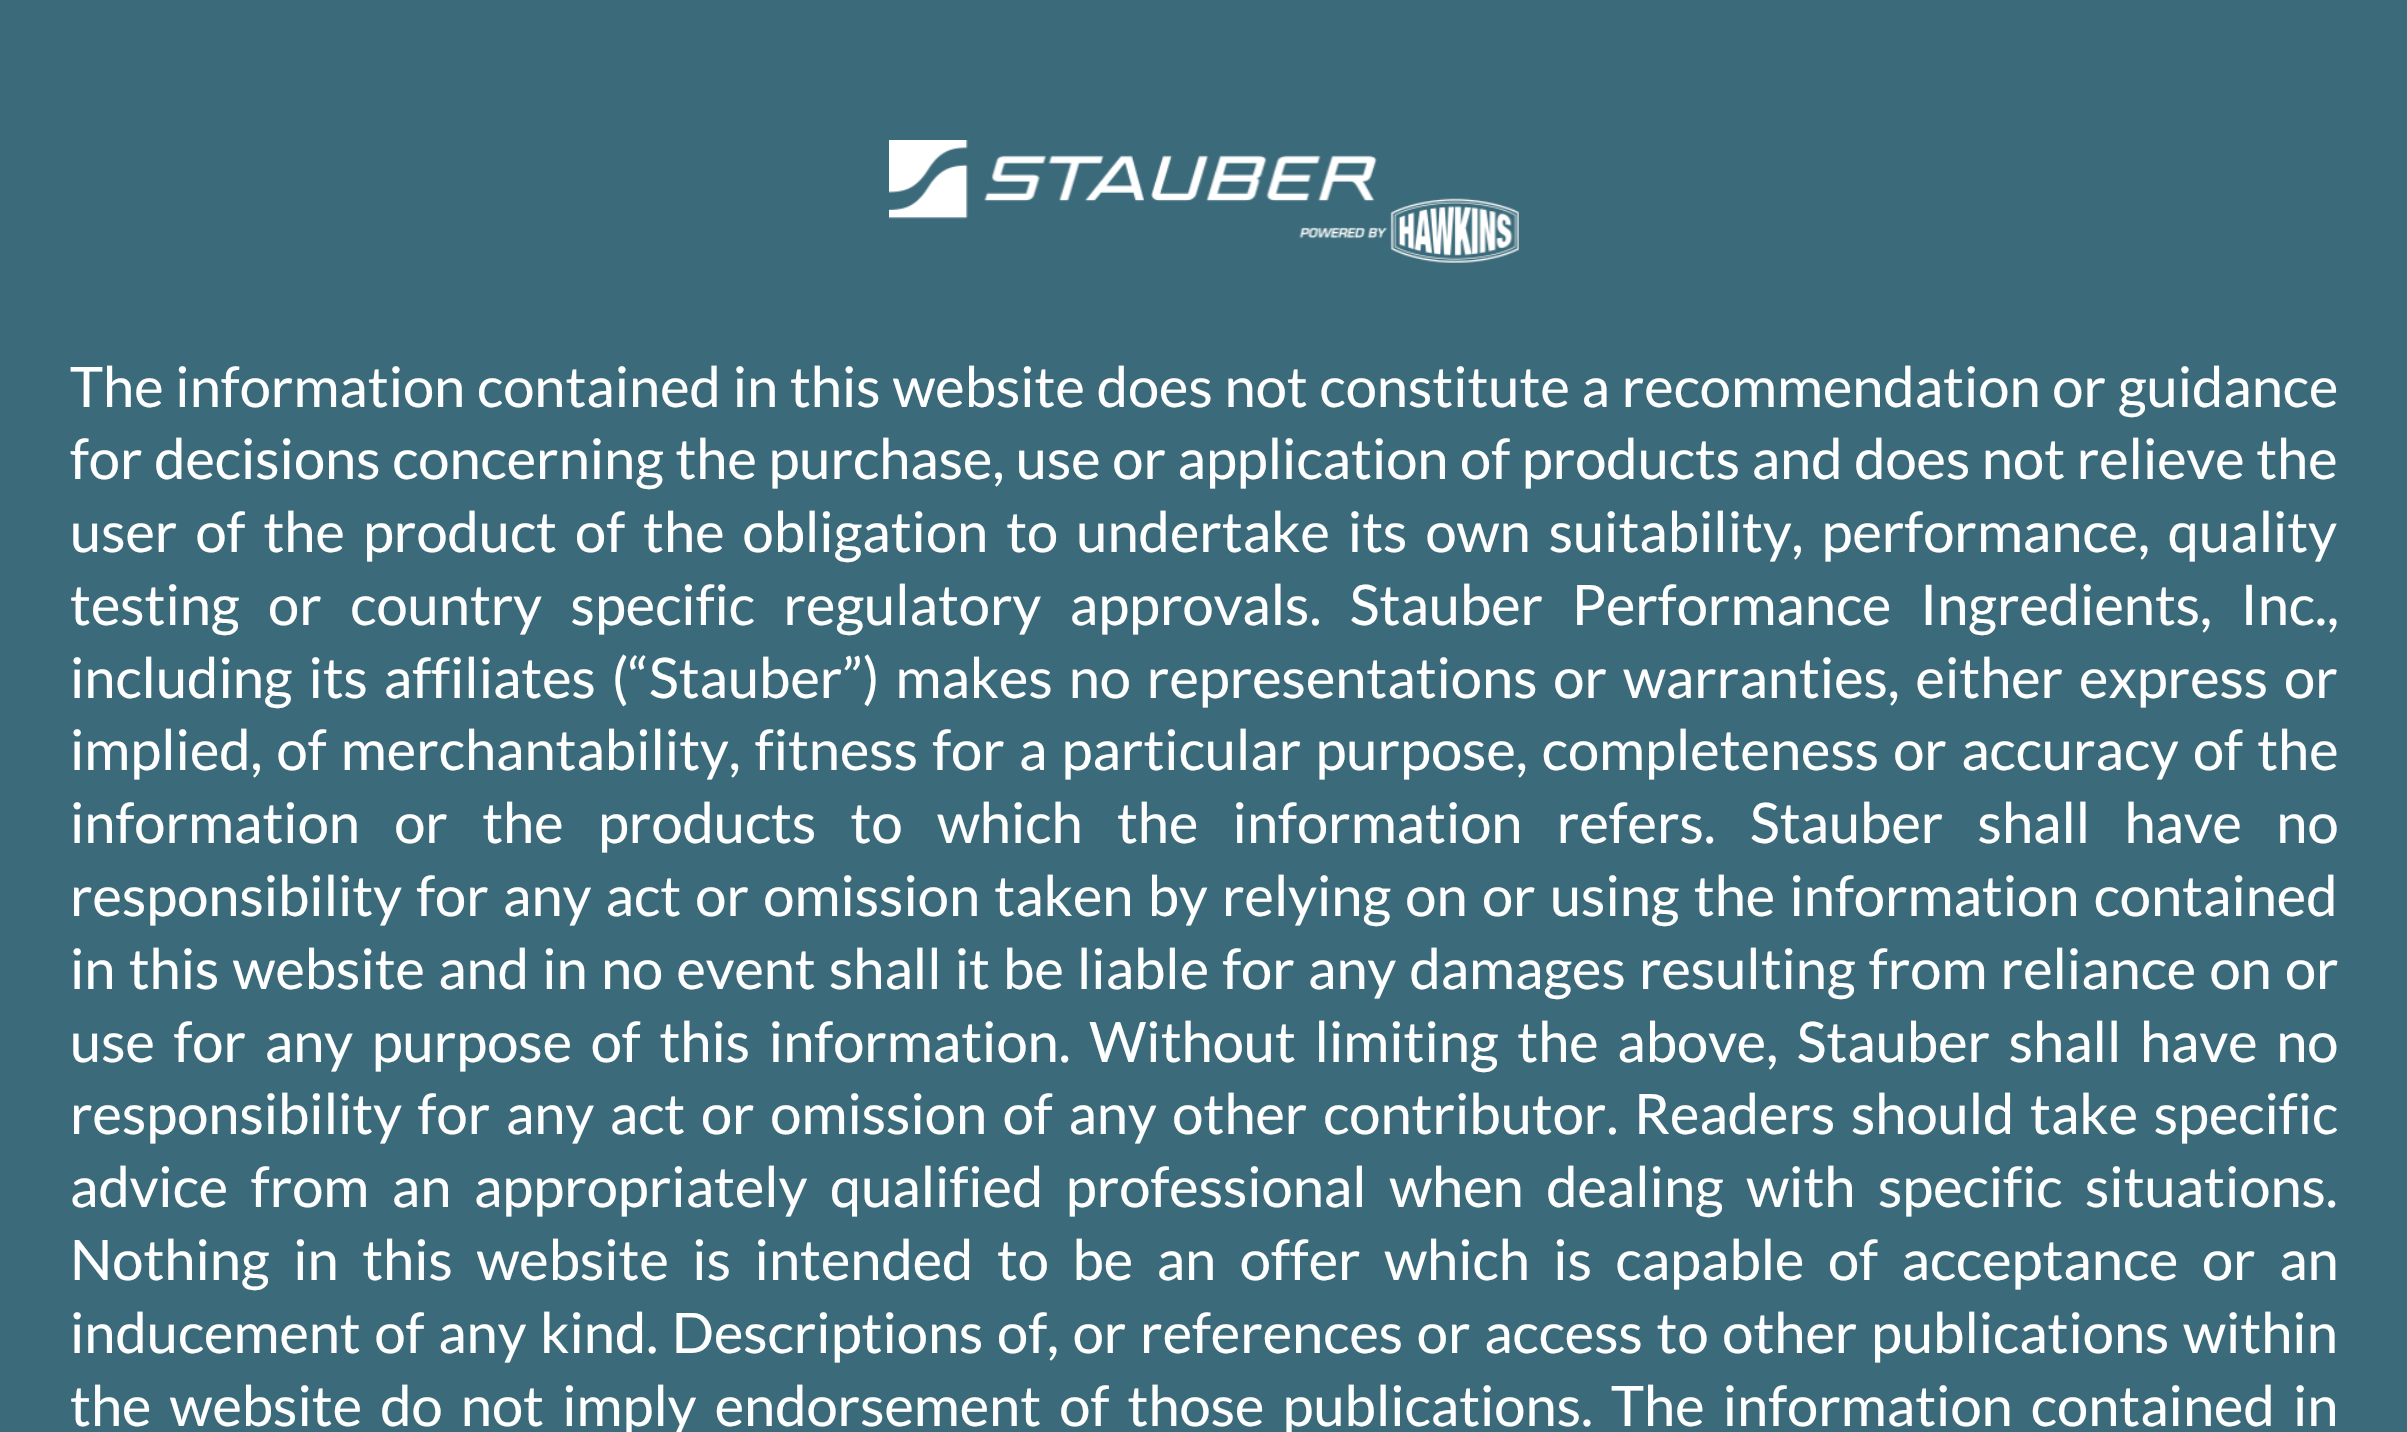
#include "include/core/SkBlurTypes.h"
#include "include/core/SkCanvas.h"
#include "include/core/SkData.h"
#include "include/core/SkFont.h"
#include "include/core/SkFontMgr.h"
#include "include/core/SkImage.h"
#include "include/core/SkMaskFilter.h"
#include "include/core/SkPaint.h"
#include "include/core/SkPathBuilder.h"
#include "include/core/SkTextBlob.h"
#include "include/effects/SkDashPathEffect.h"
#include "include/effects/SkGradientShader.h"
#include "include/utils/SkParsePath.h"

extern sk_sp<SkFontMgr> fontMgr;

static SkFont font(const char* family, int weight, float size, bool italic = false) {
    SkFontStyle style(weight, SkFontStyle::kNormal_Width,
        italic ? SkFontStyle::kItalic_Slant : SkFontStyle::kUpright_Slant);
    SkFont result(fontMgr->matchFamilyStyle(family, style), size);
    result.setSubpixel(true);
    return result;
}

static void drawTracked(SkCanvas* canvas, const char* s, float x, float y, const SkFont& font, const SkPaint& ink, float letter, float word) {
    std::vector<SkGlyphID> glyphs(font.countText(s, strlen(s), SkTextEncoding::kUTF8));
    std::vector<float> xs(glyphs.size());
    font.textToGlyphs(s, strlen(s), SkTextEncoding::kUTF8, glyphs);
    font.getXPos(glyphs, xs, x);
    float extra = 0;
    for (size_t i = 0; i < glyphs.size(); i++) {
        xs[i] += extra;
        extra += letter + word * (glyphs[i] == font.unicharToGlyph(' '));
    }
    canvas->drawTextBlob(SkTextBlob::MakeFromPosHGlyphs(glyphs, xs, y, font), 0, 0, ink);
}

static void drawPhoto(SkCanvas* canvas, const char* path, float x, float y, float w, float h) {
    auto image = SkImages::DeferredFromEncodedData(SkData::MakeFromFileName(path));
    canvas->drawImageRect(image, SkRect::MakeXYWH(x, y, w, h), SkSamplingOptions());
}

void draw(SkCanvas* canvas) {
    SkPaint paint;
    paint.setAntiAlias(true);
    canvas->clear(0xFF3B6B7A);
    drawPhoto(canvas, "assets/img1.png", 889, 140, 630, 123);
    SkFont font1 = font("Lato", 400, 56);
    paint.setColor(0xFFFFFFFF);
    drawTracked(canvas, "The information contained in this website does not constitute a recommendation or guidance", 70, 407, font1, paint, 0, 1);
    drawTracked(canvas, "for decisions concerning the purchase, use or application of products and does not relieve the", 70, 479, font1, paint, 0, 0.8f);
    drawTracked(canvas, "user of the product of the obligation to undertake its own suitability, performance, quality", 70, 552, font1, paint, 0, 7.25f);
    drawTracked(canvas, "testing or country specific regulatory approvals. Stauber Performance Ingredients, Inc.,", 70, 625, font1, paint, 0, 17.75f);
    drawTracked(canvas, "including its affiliates (“Stauber”) makes no representations or warranties, either express or", 70, 698, font1, paint, 0, 5.1f);
    drawTracked(canvas, "implied, of merchantability, fitness for a particular purpose, completeness or accuracy of the", 70, 770, font1, paint, 0, 3.4f);
    drawTracked(canvas, "information or the products to which the information refers. Stauber shall have no", 70, 843, font1, paint, 0, 23.5f);
    drawTracked(canvas, "responsibility for any act or omission taken by relying on or using the information contained", 70, 916, font1, paint, 0, 3.5f);
    drawTracked(canvas, "in this website and in no event shall it be liable for any damages resulting from reliance on or", 70, 989, font1, paint, 0, 2.4f);
    drawTracked(canvas, "use for any purpose of this information. Without limiting the above, Stauber shall have no", 70, 1062, font1, paint, 0, 7.9f);
    drawTracked(canvas, "responsibility for any act or omission of any other contributor. Readers should take specific", 70, 1134, font1, paint, 0, 4.9f);
    drawTracked(canvas, "advice from an appropriately qualified professional when dealing with specific situations.", 70, 1207, font1, paint, 0, 11.75f);
    drawTracked(canvas, "Nothing in this website is intended to be an offer which is capable of acceptance or an", 70, 1280, font1, paint, 0, 12.75f);
    drawTracked(canvas, "inducement of any kind. Descriptions of, or references or access to other publications within", 70, 1353, font1, paint, 0, 2.9f);
    drawTracked(canvas, "the website do not imply endorsement of those publications. The information contained in", 70, 1426, font1, paint, 0, 7.4f);
}
